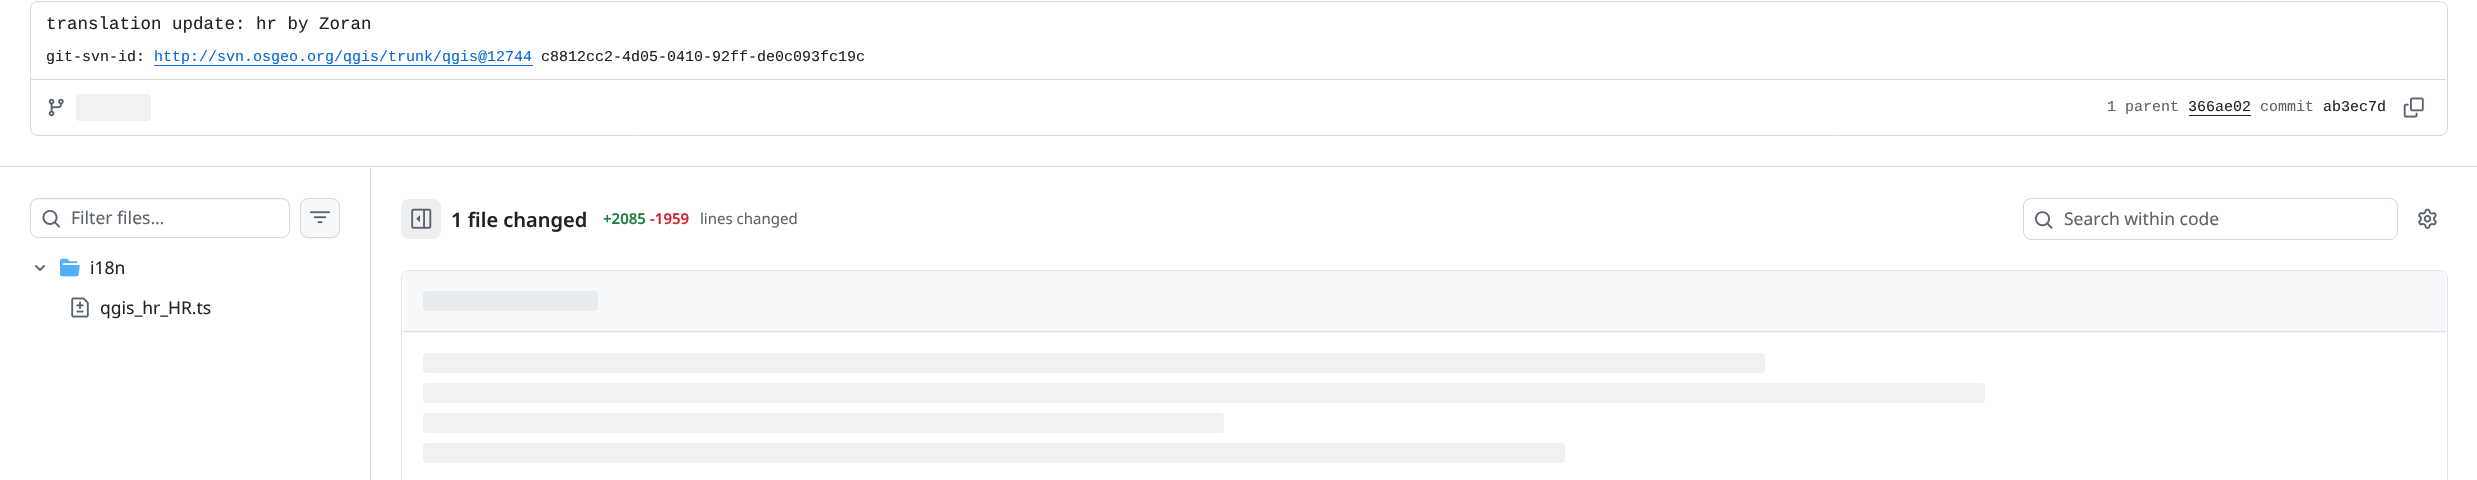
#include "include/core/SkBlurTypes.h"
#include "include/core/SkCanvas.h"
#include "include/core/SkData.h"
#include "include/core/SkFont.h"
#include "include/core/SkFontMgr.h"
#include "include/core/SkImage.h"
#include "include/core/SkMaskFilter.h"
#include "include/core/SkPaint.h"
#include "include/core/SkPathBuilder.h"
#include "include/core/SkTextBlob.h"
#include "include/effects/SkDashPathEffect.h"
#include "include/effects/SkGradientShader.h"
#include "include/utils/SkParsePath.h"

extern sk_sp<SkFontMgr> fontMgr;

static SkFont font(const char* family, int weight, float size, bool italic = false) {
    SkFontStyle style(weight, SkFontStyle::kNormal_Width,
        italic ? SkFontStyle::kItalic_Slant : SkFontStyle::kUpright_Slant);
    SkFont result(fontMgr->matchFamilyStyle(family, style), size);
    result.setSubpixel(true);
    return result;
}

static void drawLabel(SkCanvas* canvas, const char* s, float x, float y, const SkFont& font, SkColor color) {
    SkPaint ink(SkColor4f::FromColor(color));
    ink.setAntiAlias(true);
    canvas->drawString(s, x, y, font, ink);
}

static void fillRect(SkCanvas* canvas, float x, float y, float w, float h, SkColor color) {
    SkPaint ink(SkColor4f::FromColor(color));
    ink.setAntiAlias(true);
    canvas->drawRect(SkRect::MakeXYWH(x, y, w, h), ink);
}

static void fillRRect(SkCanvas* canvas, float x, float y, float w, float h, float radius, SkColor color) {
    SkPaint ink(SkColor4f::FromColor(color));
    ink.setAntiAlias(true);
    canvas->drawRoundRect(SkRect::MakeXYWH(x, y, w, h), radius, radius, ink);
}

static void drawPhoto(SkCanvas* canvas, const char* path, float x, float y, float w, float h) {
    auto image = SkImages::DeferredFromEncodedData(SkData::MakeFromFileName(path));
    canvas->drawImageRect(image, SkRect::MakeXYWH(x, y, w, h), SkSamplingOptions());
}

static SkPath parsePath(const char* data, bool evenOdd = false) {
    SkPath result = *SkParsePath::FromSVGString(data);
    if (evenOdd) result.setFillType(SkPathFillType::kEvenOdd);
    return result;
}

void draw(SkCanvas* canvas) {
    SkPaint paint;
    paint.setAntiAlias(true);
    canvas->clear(0xFFFFFFFF);
    paint.setStroke(true);
    paint.setStrokeWidth(1);
    paint.setColor(0xFFD1D9E0);
    canvas->drawRoundRect(SkRect::MakeXYWH(30.5f, 1.5f, 2417, 134), 7.5f, 7.5f, paint);
    fillRect(canvas, 31, 79, 2415, 1, 0xFFD1D9E0);
    SkFont font1 = font("Liberation Mono", 400, 17.5f);
    drawLabel(canvas, "translation update: hr by Zoran", 46, 29, font1, 0xFF1F2328);
    SkFont font2 = font("Liberation Mono", 400, 15);
    drawLabel(canvas, "git-svn-id:", 46, 61, font2, 0xFF1F2328);
    drawLabel(canvas, "http://svn.osgeo.org/qgis/trunk/qgis@12744", 154, 61, font2, 0xFF0969DA);
    fillRect(canvas, 154, 65, 379, 1, 0xFF0969DA);
    drawLabel(canvas, "c8812cc2-4d05-0410-92ff-de0c093fc19c", 541, 61, font2, 0xFF1F2328);
    drawPhoto(canvas, "assets/img1.png", 48, 98, 16, 19);
    fillRRect(canvas, 76, 94, 75, 27, 4, 0xFFF0F1F3);
    drawLabel(canvas, "1 parent", 2107, 111, font2, 0xFF59636E);
    drawLabel(canvas, "366ae02", 2188, 111, font2, 0xFF1F2328);
    fillRect(canvas, 2189, 115, 62, 1, 0xFF1F2328);
    drawLabel(canvas, "commit", 2260, 111, font2, 0xFF59636E);
    drawLabel(canvas, "ab3ec7d", 2323, 111, font2, 0xFF1F2328);
    drawPhoto(canvas, "assets/img2.png", 2403, 97, 21, 21);
    fillRect(canvas, 0, 166, 2477, 1, 0xFFD1D9E0);
    paint.setStroke(false);
    paint.setColor(0xFFF6F6F6);
    canvas->drawPath(parsePath("M38 200H282C286 200 289 203 289 206V205C289 202 286 199 283 199H37C34 199 31 202 31 205V206C31 203 34 200 38 200Z"), paint);
    paint.setStroke(true);
    paint.setColor(0xFFD1D9E0);
    canvas->drawRoundRect(SkRect::MakeXYWH(30.5f, 198.5f, 259, 39), 7.5f, 7.5f, paint);
    drawPhoto(canvas, "assets/img3.png", 42, 210, 18, 18);
    SkFont font3 = font("Noto Sans", 400, 17.5f);
    drawLabel(canvas, "Filter files…", 71, 224, font3, 0xFF59636E);
    paint.setStroke(false);
    paint.setColor(0xFFF6F6F6);
    canvas->drawPath(parsePath("M300 230C300 242 312 239 320 239C328 239 340 242 340 230C340 240 326 238 320 238C314 238 300 240 300 230Z"), paint);
    paint.setColor(0xFFF6F8FA);
    canvas->drawRoundRect(SkRect::MakeXYWH(300.5f, 198.5f, 39, 39), 7.5f, 7.5f, paint);
    paint.setStroke(true);
    paint.setColor(0xFFD1D9E0);
    canvas->drawRoundRect(SkRect::MakeXYWH(300.5f, 198.5f, 39, 39), 7.5f, 7.5f, paint);
    drawPhoto(canvas, "assets/img4.png", 310, 211, 20, 13);
    drawPhoto(canvas, "assets/img5.png", 35, 265, 10, 6);
    drawPhoto(canvas, "assets/img6.png", 60, 258, 20, 19);
    drawLabel(canvas, "i18n", 90, 274, font3, 0xFF1F2328);
    drawPhoto(canvas, "assets/img7.png", 71, 297, 18, 21);
    drawLabel(canvas, "qgis_hr_HR.ts", 100, 314, font3, 0xFF1F2328);
    fillRect(canvas, 370, 168, 1, 312, 0xFFD1D9E0);
    fillRRect(canvas, 401, 199, 40, 40, 8, 0xFFECEEF0);
    drawPhoto(canvas, "assets/img8.png", 411, 208, 21, 21);
    SkFont font4 = font("Noto Sans", 600, 20);
    drawLabel(canvas, "1 file changed", 451, 227, font4, 0xFF1F2328);
    SkFont font5 = font("Noto Sans", 600, 15);
    drawLabel(canvas, "+2085", 603, 224, font5, 0xFF1A7F37);
    drawLabel(canvas, "-1959", 650, 224, font5, 0xFFD1242F);
    SkFont font6 = font("Noto Sans", 400, 15);
    drawLabel(canvas, "lines changed", 700, 224, font6, 0xFF59636E);
    paint.setStroke(false);
    paint.setColor(0xFFF6F6F6);
    canvas->drawPath(parsePath("M2030 200H2390C2393 200 2396 203 2396 206C2396 202 2394 199 2390 199H2030C2026 199 2024 202 2024 206C2024 203 2027 200 2030 200Z"), paint);
    paint.setStroke(true);
    paint.setColor(0xFFD1D9E0);
    canvas->drawRoundRect(SkRect::MakeXYWH(2023.5f, 198.5f, 374, 41), 7.5f, 7.5f, paint);
    fillRRect(canvas, 2024, 199, 372, 40, 8, 0xFFFFFFFF);
    drawPhoto(canvas, "assets/img9.png", 2035, 211, 18, 18);
    drawLabel(canvas, "Search within code", 2064, 225, font3, 0xFF59636E);
    drawPhoto(canvas, "assets/img10.png", 2418, 208, 19, 21);
    paint.setColor(0xFFDFE4E9);
    canvas->drawPath(parsePath("M409 270.5H2440C2444 270.5 2447.5 274 2447.5 278V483.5H401.5V278C401.5 274 405 270.5 409 270.5Z"), paint);
    paint.setStroke(false);
    paint.setColor(0xFFF6F8FA);
    canvas->drawPath(parsePath("M411 271H2438C2442.5 271 2446 274.5 2446 279V333H403V279C403 274.5 406.5 271 411 271Z"), paint);
    fillRect(canvas, 403, 331, 2043, 1, 0xFFDCE2E8);
    fillRRect(canvas, 423, 291, 175, 20, 4, 0xFFE8EBEE);
    fillRRect(canvas, 423, 353, 1342, 20, 4, 0xFFF0F1F3);
    fillRRect(canvas, 423, 383, 1562, 20, 4, 0xFFF0F1F3);
    fillRRect(canvas, 423, 413, 801, 20, 4, 0xFFF0F1F3);
    fillRRect(canvas, 423, 443, 1142, 20, 4, 0xFFF0F1F3);
}
